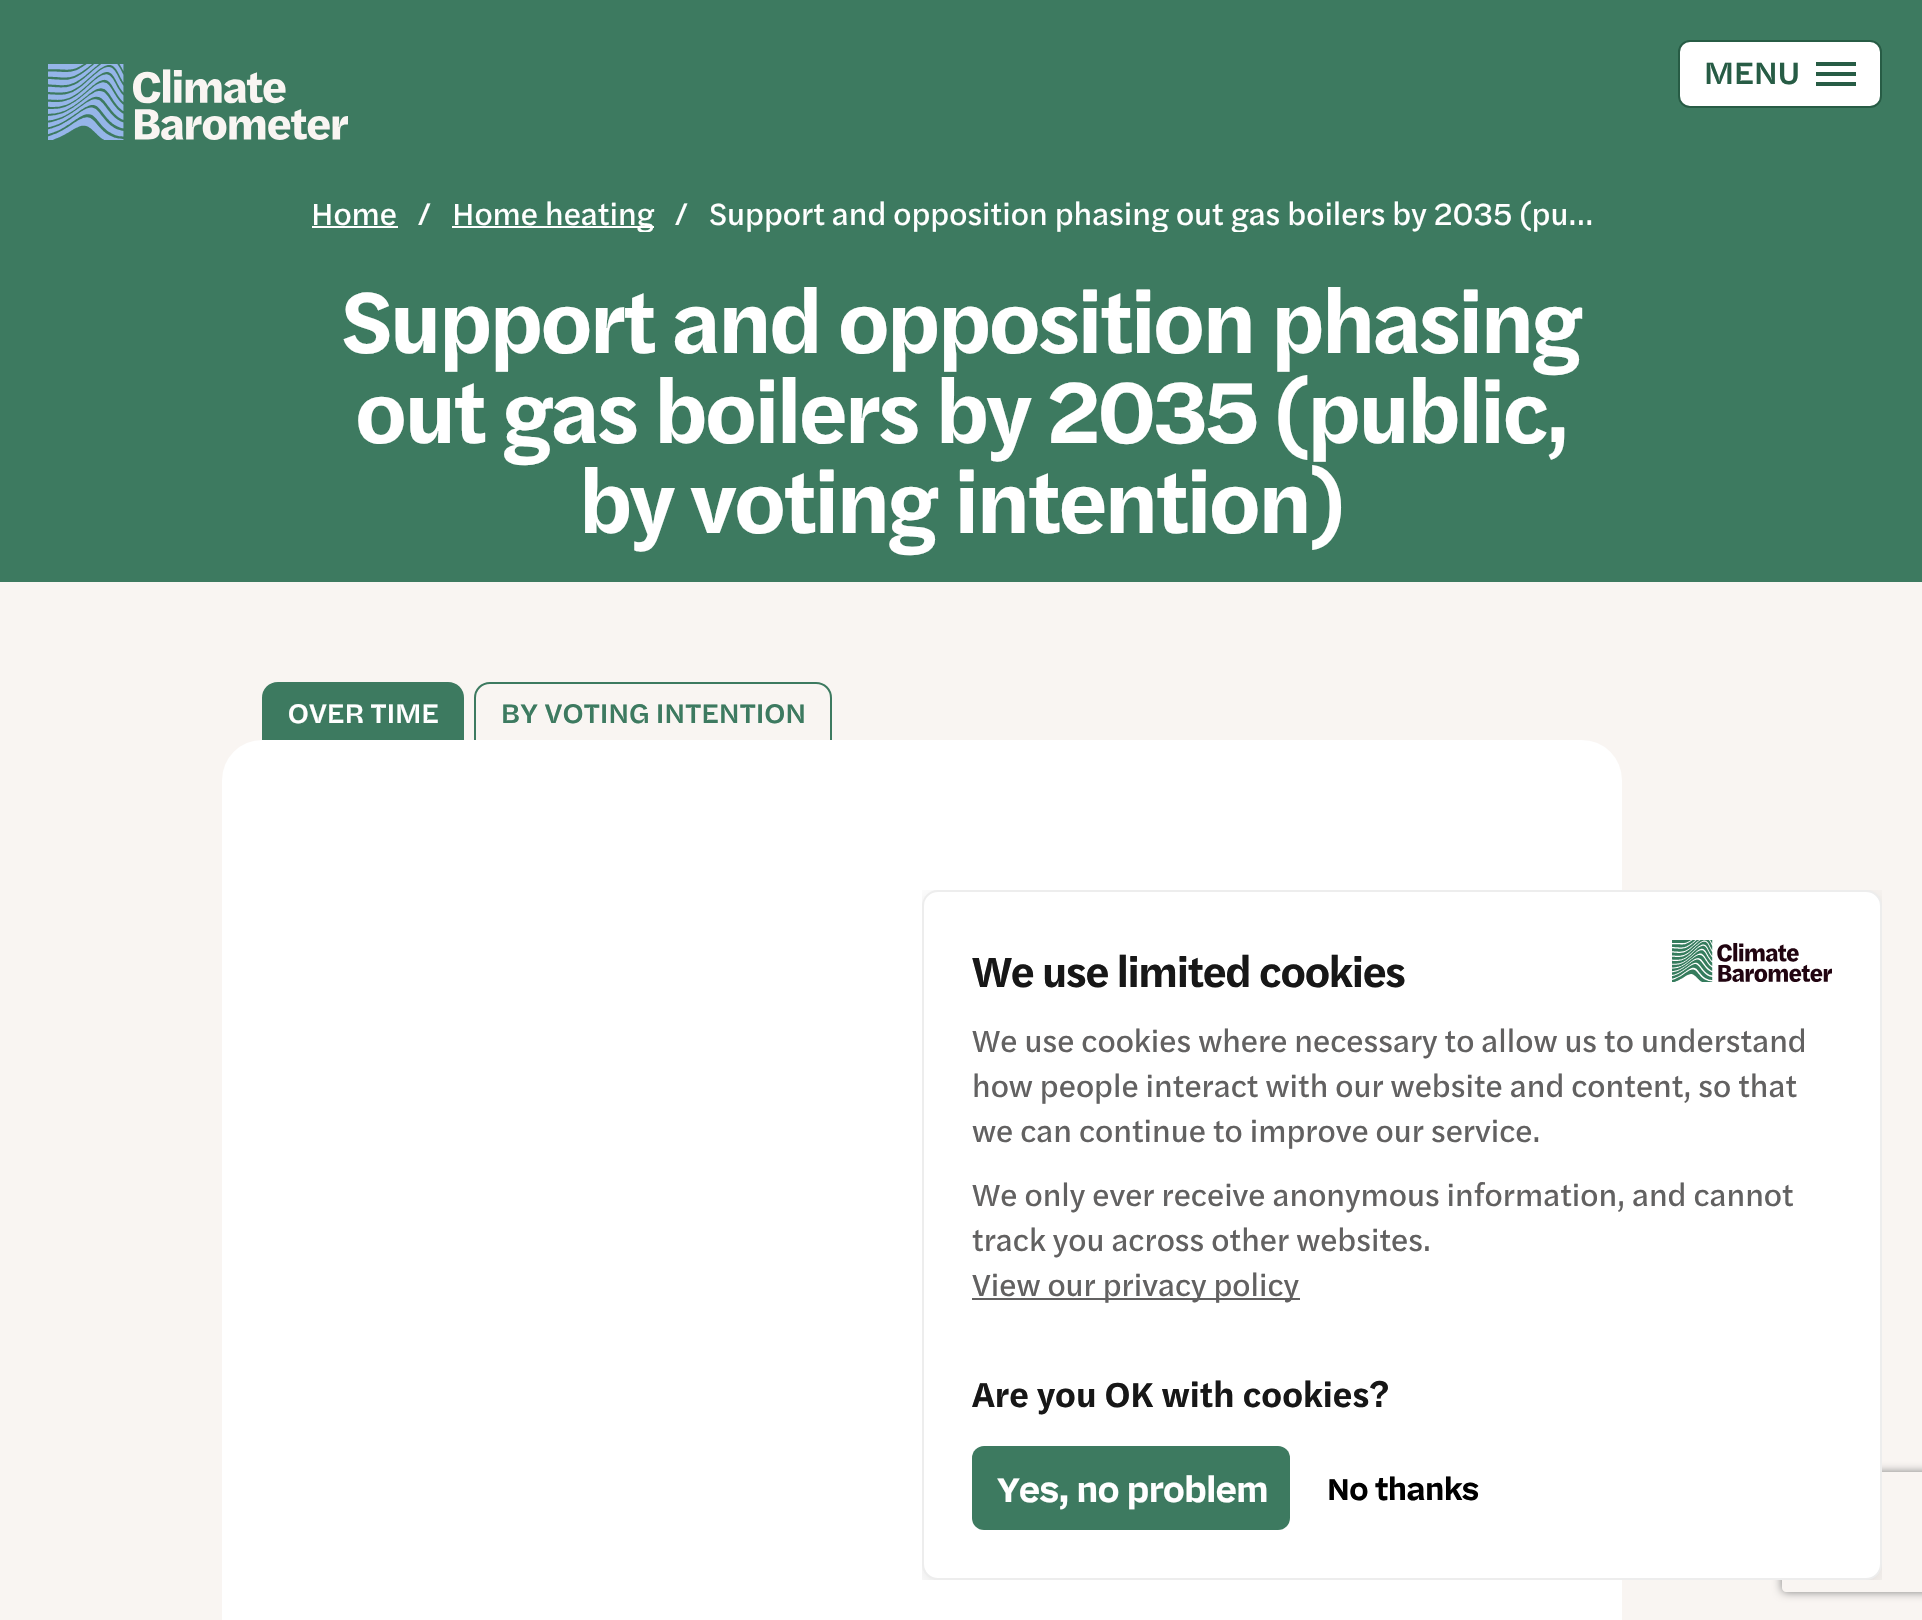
#include "include/core/SkBlurTypes.h"
#include "include/core/SkCanvas.h"
#include "include/core/SkData.h"
#include "include/core/SkFont.h"
#include "include/core/SkFontMgr.h"
#include "include/core/SkImage.h"
#include "include/core/SkMaskFilter.h"
#include "include/core/SkPaint.h"
#include "include/core/SkPathBuilder.h"
#include "include/core/SkTextBlob.h"
#include "include/effects/SkDashPathEffect.h"
#include "include/effects/SkGradientShader.h"
#include "include/utils/SkParsePath.h"

extern sk_sp<SkFontMgr> fontMgr;

static SkFont font(const char* family, int weight, float size, bool italic = false) {
    SkFontStyle style(weight, SkFontStyle::kNormal_Width,
        italic ? SkFontStyle::kItalic_Slant : SkFontStyle::kUpright_Slant);
    SkFont result(fontMgr->matchFamilyStyle(family, style), size);
    result.setSubpixel(true);
    return result;
}

static void drawLabel(SkCanvas* canvas, const char* s, float x, float y, const SkFont& font, SkColor color) {
    SkPaint ink(SkColor4f::FromColor(color));
    ink.setAntiAlias(true);
    canvas->drawString(s, x, y, font, ink);
}

static void drawTracked(SkCanvas* canvas, const char* s, float x, float y, const SkFont& font, const SkPaint& ink, float letter, float word) {
    std::vector<SkGlyphID> glyphs(font.countText(s, strlen(s), SkTextEncoding::kUTF8));
    std::vector<float> xs(glyphs.size());
    font.textToGlyphs(s, strlen(s), SkTextEncoding::kUTF8, glyphs);
    font.getXPos(glyphs, xs, x);
    float extra = 0;
    for (size_t i = 0; i < glyphs.size(); i++) {
        xs[i] += extra;
        extra += letter + word * (glyphs[i] == font.unicharToGlyph(' '));
    }
    canvas->drawTextBlob(SkTextBlob::MakeFromPosHGlyphs(glyphs, xs, y, font), 0, 0, ink);
}

static void fillRect(SkCanvas* canvas, float x, float y, float w, float h, SkColor color) {
    SkPaint ink(SkColor4f::FromColor(color));
    ink.setAntiAlias(true);
    canvas->drawRect(SkRect::MakeXYWH(x, y, w, h), ink);
}

static void fillRRect(SkCanvas* canvas, float x, float y, float w, float h, float radius, SkColor color) {
    SkPaint ink(SkColor4f::FromColor(color));
    ink.setAntiAlias(true);
    canvas->drawRoundRect(SkRect::MakeXYWH(x, y, w, h), radius, radius, ink);
}

static void drawPhoto(SkCanvas* canvas, const char* path, float x, float y, float w, float h) {
    auto image = SkImages::DeferredFromEncodedData(SkData::MakeFromFileName(path));
    canvas->drawImageRect(image, SkRect::MakeXYWH(x, y, w, h), SkSamplingOptions());
}

static SkPath parsePath(const char* data, bool evenOdd = false) {
    SkPath result = *SkParsePath::FromSVGString(data);
    if (evenOdd) result.setFillType(SkPathFillType::kEvenOdd);
    return result;
}

void draw(SkCanvas* canvas) {
    SkPaint paint;
    paint.setAntiAlias(true);
    canvas->clear(0xFFF9F5F2);
    fillRect(canvas, 0, 0, 1922, 582, 0xFF3D7A60);
    drawPhoto(canvas, "assets/img1.png", 48, 64, 300, 76);
    paint.setColor(0xFFFFFFFF);
    canvas->drawRoundRect(SkRect::MakeXYWH(1679, 41, 202, 66), 11, 11, paint);
    paint.setStroke(true);
    paint.setStrokeWidth(2);
    paint.setColor(0xFF275C45);
    canvas->drawRoundRect(SkRect::MakeXYWH(1679, 41, 202, 66), 11, 11, paint);
    SkFont font1 = font("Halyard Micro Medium", 500, 32);
    paint.setStroke(false);
    drawTracked(canvas, "MENU", 1703, 84, font1, paint, -2, 0);
    fillRect(canvas, 1816, 62, 40, 4, 0xFF275C45);
    fillRect(canvas, 1816, 72, 40, 4, 0xFF275C45);
    fillRect(canvas, 1816, 82, 40, 4, 0xFF275C45);
    SkFont font2 = font("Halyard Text", 400, 32);
    drawLabel(canvas, "Home", 311, 225, font2, 0xFFFFFFFF);
    fillRect(canvas, 312, 226, 86, 2, 0xFFFFFFFF);
    drawLabel(canvas, "/", 417, 225, font2, 0xFFFFFFFF);
    fillRect(canvas, 452, 226, 202, 2, 0xFFFFFFFF);
    canvas->save();
    canvas->clipRect(SkRect::MakeXYWH(312, 188, 1300, 44));
    drawLabel(canvas, "Home heating", 452, 225, font2, 0xFFFFFFFF);
    canvas->restore();
    drawLabel(canvas, "/", 674, 225, font2, 0xFFFFFFFF);
    canvas->save();
    canvas->clipRect(SkRect::MakeXYWH(654, 188, 958, 44));
    drawLabel(canvas, "Support and opposition phasing out gas boilers by 2035 (pu…", 709, 225, font2, 0xFFFFFFFF);
    canvas->restore();
    SkFont font3 = font("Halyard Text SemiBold", 600, 90);
    paint.setColor(0xFFFFFFFF);
    drawTracked(canvas, "Support and opposition phasing", 341, 353, font3, paint, -2.7f, 0);
    drawTracked(canvas, "out gas boilers by 2035 (public,", 355, 443, font3, paint, -2.7f, 0);
    drawTracked(canvas, "by voting intention)", 579, 533, font3, paint, -2.7f, 0);
    paint.setColor(0xFF3D7A60);
    canvas->drawPath(parsePath("M278 683H448C456.5 683 463 689.5 463 698V743H263V698C263 689.5 269.5 683 278 683Z"), paint);
    paint.setStroke(true);
    canvas->drawPath(parsePath("M278 683H448C456.5 683 463 689.5 463 698V743H263V698C263 689.5 269.5 683 278 683Z"), paint);
    SkFont font4 = font("Halyard Micro Medium", 500, 28);
    paint.setStroke(false);
    paint.setColor(0xFFFFFFFF);
    drawTracked(canvas, "OVER TIME", 287, 723, font4, paint, -1.7f, 0);
    paint.setStroke(true);
    paint.setColor(0xFF3D7A60);
    canvas->drawPath(parsePath("M490 683H816C824.5 683 831 689.5 831 698V743H475V698C475 689.5 481.5 683 490 683Z"), paint);
    paint.setStroke(false);
    drawTracked(canvas, "BY VOTING INTENTION", 500, 723, font4, paint, -1.7f, 0);
    fillRRect(canvas, 222, 740, 1400, 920, 40, 0xFFFFFFFF);
    canvas->save();
    canvas->clipRect(SkRect::MakeXYWH(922, 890, 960, 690));
    paint.setColor(0x0D000000);
    paint.setMaskFilter(SkMaskFilter::MakeBlur(kNormal_SkBlurStyle, 6));
    canvas->drawRoundRect(SkRect::MakeXYWH(922, 894, 960, 690), 16, 16, paint);
    paint.setMaskFilter(nullptr);
    paint.setMaskFilter(SkMaskFilter::MakeBlur(kNormal_SkBlurStyle, 24));
    canvas->drawRoundRect(SkRect::MakeXYWH(922, 898, 960, 690), 16, 16, paint);
    paint.setMaskFilter(nullptr);
    canvas->restore();
    canvas->save();
    canvas->clipPath(parsePath("M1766 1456H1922V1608H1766ZM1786 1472H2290C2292 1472 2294 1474 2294 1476V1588C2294 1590 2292 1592 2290 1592H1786C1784 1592 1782 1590 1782 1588V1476C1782 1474 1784 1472 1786 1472Z", true), true);
    paint.setColor(0xFF808080);
    paint.setMaskFilter(SkMaskFilter::MakeBlur(kNormal_SkBlurStyle, 5));
    canvas->drawRoundRect(SkRect::MakeXYWH(1782, 1472, 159, 120), 4, 4, paint);
    paint.setMaskFilter(nullptr);
    canvas->restore();
    paint.setColor(0xFFFFFFFF);
    canvas->drawRoundRect(SkRect::MakeXYWH(923, 891, 958, 688), 15, 15, paint);
    paint.setStroke(true);
    paint.setColor(0xFFEDEDED);
    canvas->drawRoundRect(SkRect::MakeXYWH(923, 891, 958, 688), 15, 15, paint);
    SkFont font5 = font("Halyard Text SemiBold", 600, 44);
    paint.setStroke(false);
    paint.setColor(0xFF171717);
    drawTracked(canvas, "We use limited cookies", 972, 987, font5, paint, -1.3f, 0);
    drawPhoto(canvas, "assets/img2.png", 1672, 940, 160, 42);
    drawLabel(canvas, "We use cookies where necessary to allow us to understand", 972, 1052, font2, 0xFF626161);
    drawLabel(canvas, "how people interact with our website and content, so that", 972, 1097, font2, 0xFF626161);
    drawLabel(canvas, "we can continue to improve our service.", 972, 1142, font2, 0xFF626161);
    drawLabel(canvas, "We only ever receive anonymous information, and cannot", 972, 1206, font2, 0xFF626161);
    drawLabel(canvas, "track you across other websites.", 972, 1251, font2, 0xFF626161);
    fillRect(canvas, 972, 1298, 328, 2, 0xFF626161);
    drawLabel(canvas, "View our privacy policy", 972, 1296, font2, 0xFF626161);
    SkFont font6 = font("Halyard Text SemiBold", 600, 36);
    drawLabel(canvas, "Are you OK with cookies?", 972, 1407, font6, 0xFF171717);
    fillRRect(canvas, 972, 1446, 318, 84, 12, 0xFF3D7A60);
    SkFont font7 = font("Halyard Micro Medium", 700, 34);
    paint.setColor(0xFFFFFFFF);
    drawTracked(canvas, "Yes, no problem", 996, 1502, font7, paint, -2, 0);
    SkFont font8 = font("Halyard Micro Medium", 700, 30);
    paint.setColor(0xFF000000);
    drawTracked(canvas, "No thanks", 1326, 1500, font8, paint, -1.75f, 0);
}
